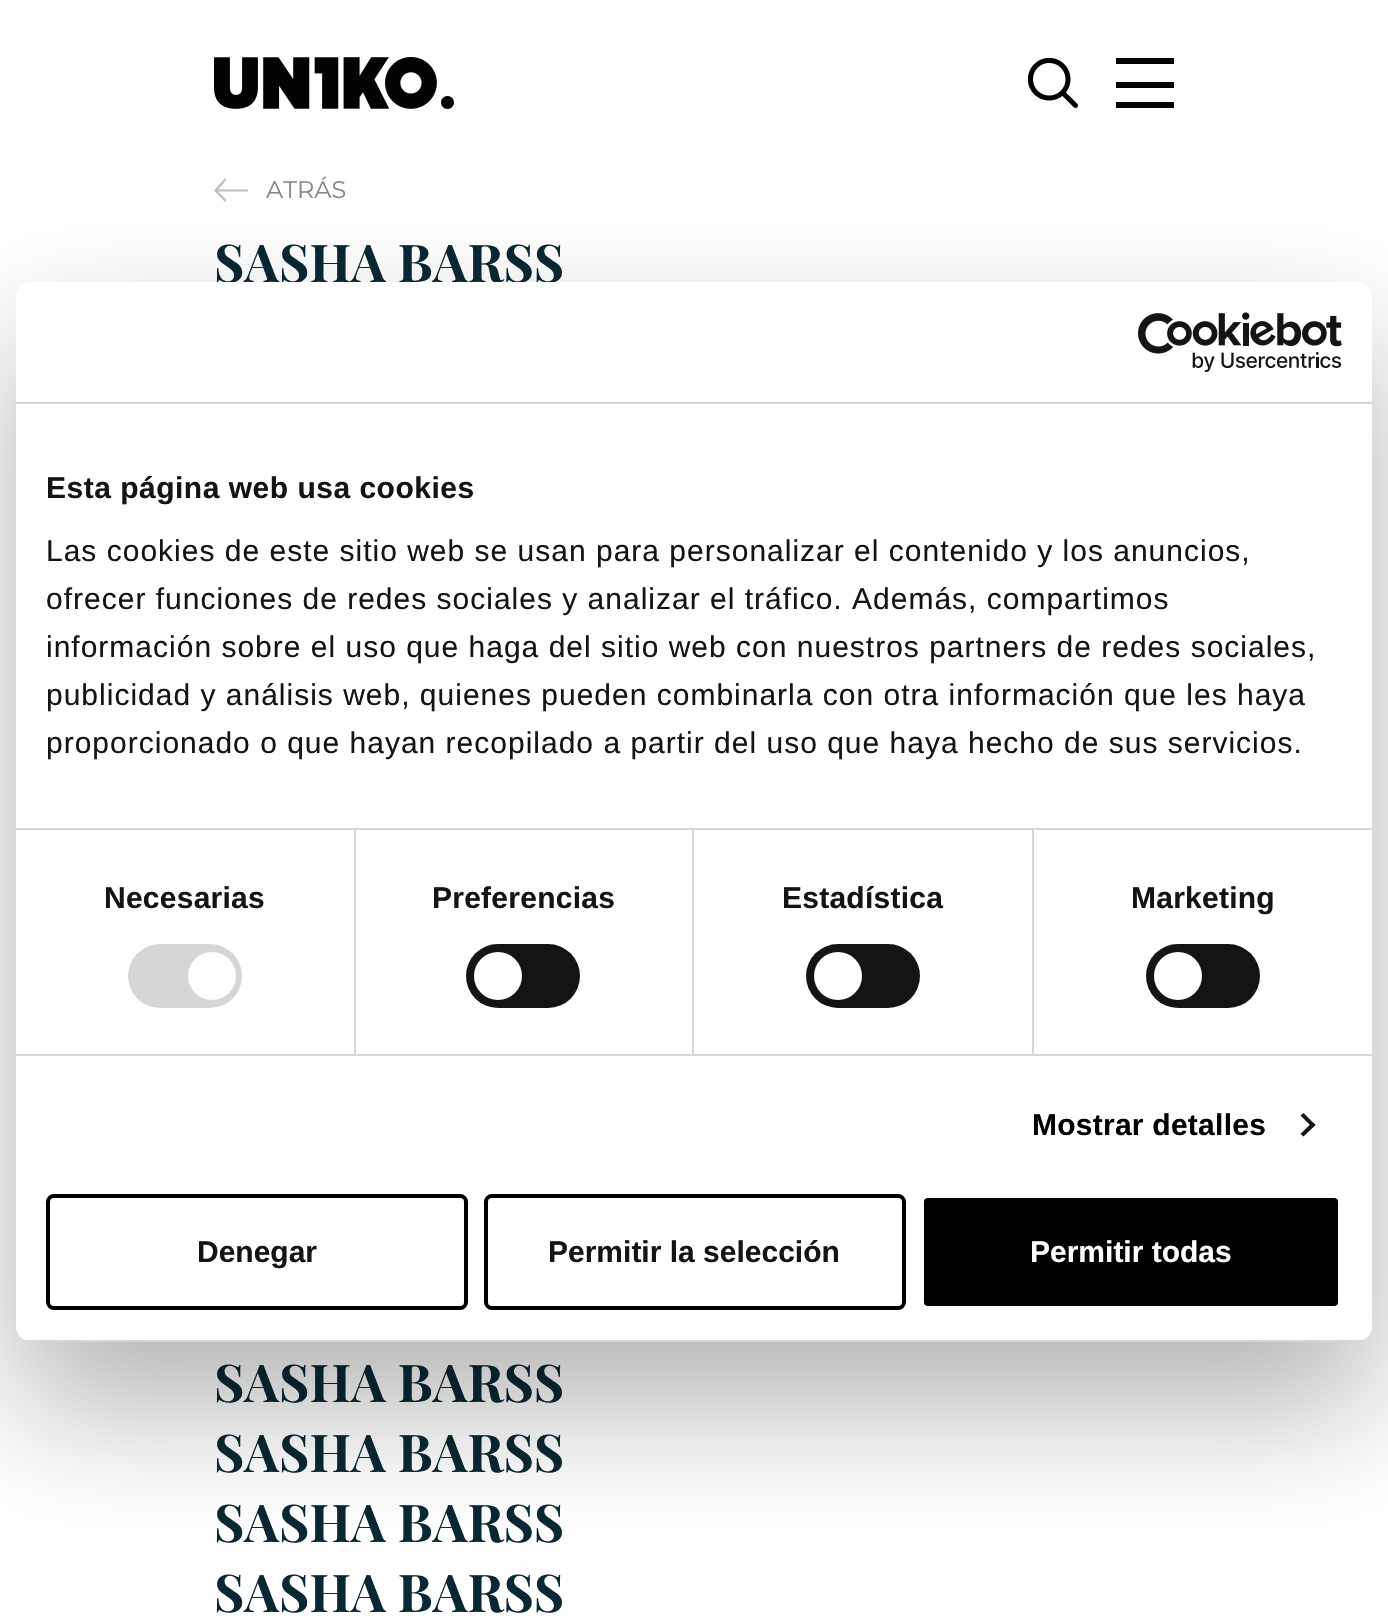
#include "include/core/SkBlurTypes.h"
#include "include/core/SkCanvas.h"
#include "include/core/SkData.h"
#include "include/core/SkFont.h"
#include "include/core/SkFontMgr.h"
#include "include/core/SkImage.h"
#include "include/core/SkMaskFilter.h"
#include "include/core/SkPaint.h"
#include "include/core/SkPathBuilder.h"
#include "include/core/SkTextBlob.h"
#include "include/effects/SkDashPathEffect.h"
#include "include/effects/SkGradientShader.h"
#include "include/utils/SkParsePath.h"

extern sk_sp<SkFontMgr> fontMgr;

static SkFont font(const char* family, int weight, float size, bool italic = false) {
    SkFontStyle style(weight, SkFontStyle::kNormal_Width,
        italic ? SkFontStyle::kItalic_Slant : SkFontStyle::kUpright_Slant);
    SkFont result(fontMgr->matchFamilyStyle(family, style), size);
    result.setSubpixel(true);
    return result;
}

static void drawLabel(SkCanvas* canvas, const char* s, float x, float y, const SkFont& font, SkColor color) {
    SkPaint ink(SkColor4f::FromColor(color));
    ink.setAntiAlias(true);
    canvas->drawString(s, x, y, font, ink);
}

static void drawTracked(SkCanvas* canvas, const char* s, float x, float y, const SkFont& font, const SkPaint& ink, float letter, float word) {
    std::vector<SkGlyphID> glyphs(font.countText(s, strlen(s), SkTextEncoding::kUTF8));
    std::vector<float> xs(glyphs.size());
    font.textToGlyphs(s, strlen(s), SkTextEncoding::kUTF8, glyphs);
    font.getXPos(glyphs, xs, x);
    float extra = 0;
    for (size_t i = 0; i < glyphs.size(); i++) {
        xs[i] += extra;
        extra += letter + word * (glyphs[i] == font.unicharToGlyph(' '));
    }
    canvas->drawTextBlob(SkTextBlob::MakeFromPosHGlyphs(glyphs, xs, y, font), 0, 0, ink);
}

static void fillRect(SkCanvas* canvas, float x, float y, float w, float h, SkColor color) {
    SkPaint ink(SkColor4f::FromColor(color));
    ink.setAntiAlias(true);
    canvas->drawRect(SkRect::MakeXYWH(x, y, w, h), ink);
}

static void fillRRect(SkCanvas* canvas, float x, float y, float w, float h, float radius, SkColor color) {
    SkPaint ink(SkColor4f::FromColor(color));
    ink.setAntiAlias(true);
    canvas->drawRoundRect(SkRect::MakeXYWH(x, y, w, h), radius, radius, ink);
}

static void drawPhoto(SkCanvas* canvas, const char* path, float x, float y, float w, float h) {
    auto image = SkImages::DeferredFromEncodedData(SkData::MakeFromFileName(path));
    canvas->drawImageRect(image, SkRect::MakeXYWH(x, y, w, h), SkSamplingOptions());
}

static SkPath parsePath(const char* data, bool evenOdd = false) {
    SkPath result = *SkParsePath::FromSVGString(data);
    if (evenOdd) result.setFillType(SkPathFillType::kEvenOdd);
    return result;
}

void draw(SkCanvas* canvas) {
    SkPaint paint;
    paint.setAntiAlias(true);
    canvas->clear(0xFFFFFFFF);
    drawPhoto(canvas, "assets/img1.png", 214, 57, 240, 52);
    drawPhoto(canvas, "assets/img2.png", 1028, 58, 50, 50);
    fillRect(canvas, 1116, 58, 58, 6, 0xFF000000);
    fillRect(canvas, 1116, 82, 58, 6, 0xFF000000);
    fillRect(canvas, 1116, 102, 58, 6, 0xFF000000);
    paint.setColor(0xFFC1C1C1);
    canvas->drawPath(parsePath("M225 202L226.5 200L218 191.5H248V189.5H218L226.5 180L225 178L214 190.5Z"), paint);
    SkFont font1 = font("Montserrat", 400, 24);
    drawLabel(canvas, "ATRÁS", 266, 198, font1, 0xFF888888);
    SkFont font2 = font("Playfair Display", 700, 52);
    drawLabel(canvas, "SASHA BARSS", 214, 282, font2, 0xFF092834);
    drawLabel(canvas, "SASHA BARSS", 214, 1402, font2, 0xFF092834);
    drawLabel(canvas, "SASHA BARSS", 214, 1472, font2, 0xFF092834);
    drawLabel(canvas, "SASHA BARSS", 214, 1542, font2, 0xFF092834);
    drawLabel(canvas, "SASHA BARSS", 214, 1612, font2, 0xFF092834);
    paint.setColor(0x4D000000);
    paint.setMaskFilter(SkMaskFilter::MakeBlur(kNormal_SkBlurStyle, 68));
    canvas->drawRoundRect(SkRect::MakeXYWH(16, 346, 1356, 1060), 16, 16, paint);
    paint.setMaskFilter(nullptr);
    fillRRect(canvas, 16, 282, 1356, 1060, 16, 0xFFFFFFFF);
    fillRect(canvas, 16, 402, 1356, 2, 0xFFD6D6D6);
    drawPhoto(canvas, "assets/img3.png", 1138, 312, 204, 60);
    fillRect(canvas, 16, 828, 1356, 2, 0xFFD6D6D6);
    SkFont font3 = font("Liberation Sans", 700, 30);
    paint.setColor(0xFF141414);
    drawTracked(canvas, "Esta página web usa cookies", 46, 498, font3, paint, 0.5f, 0);
    SkFont font4 = font("Liberation Sans", 400, 30);
    drawTracked(canvas, "Las cookies de este sitio web se usan para personalizar el contenido y los anuncios,", 46, 561, font4, paint, 1, 0);
    drawTracked(canvas, "ofrecer funciones de redes sociales y analizar el tráfico. Además, compartimos", 46, 609, font4, paint, 1, 0);
    drawTracked(canvas, "información sobre el uso que haga del sitio web con nuestros partners de redes sociales,", 46, 657, font4, paint, 1, 0);
    drawTracked(canvas, "publicidad y análisis web, quienes pueden combinarla con otra información que les haya", 46, 705, font4, paint, 1, 0);
    drawTracked(canvas, "proporcionado o que hayan recopilado a partir del uso que haya hecho de sus servicios.", 46, 753, font4, paint, 1, 0);
    fillRect(canvas, 16, 1054, 1356, 2, 0xFFD6D6D6);
    fillRect(canvas, 354, 830, 2, 224, 0xFFD6D6D6);
    drawTracked(canvas, "Necesarias", 104, 908, font3, paint, 0.25f, 0);
    fillRRect(canvas, 128, 944, 114, 64, 32, 0xFFD6D6D6);
    paint.setColor(0xFFFFFFFF);
    canvas->drawCircle(212, 976, 24, paint);
    fillRect(canvas, 692, 830, 2, 224, 0xFFD6D6D6);
    paint.setColor(0xFF141414);
    drawTracked(canvas, "Preferencias", 432, 908, font3, paint, 0.25f, 0);
    fillRRect(canvas, 466, 944, 114, 64, 32, 0xFF141414);
    paint.setColor(0xFFFFFFFF);
    canvas->drawCircle(498, 976, 24, paint);
    fillRect(canvas, 1032, 830, 2, 224, 0xFFD6D6D6);
    paint.setColor(0xFF141414);
    drawTracked(canvas, "Estadística", 782, 908, font3, paint, 0.25f, 0);
    fillRRect(canvas, 806, 944, 114, 64, 32, 0xFF141414);
    paint.setColor(0xFFFFFFFF);
    canvas->drawCircle(838, 976, 24, paint);
    paint.setColor(0xFF141414);
    drawTracked(canvas, "Marketing", 1131, 908, font3, paint, 0.25f, 0);
    fillRRect(canvas, 1146, 944, 114, 64, 32, 0xFF141414);
    paint.setColor(0xFFFFFFFF);
    canvas->drawCircle(1178, 976, 24, paint);
    paint.setColor(0xFF000000);
    drawTracked(canvas, "Mostrar detalles", 1032, 1135, font3, paint, 0.25f, 0);
    paint.setColor(0xFF141414);
    canvas->drawPath(parsePath("M1303.5 1113L1315.5 1125L1312.5 1127.5L1300.5 1115.5Z"), paint);
    canvas->drawPath(parsePath("M1312.5 1122L1315.5 1125L1303.5 1136.5L1300.5 1134Z"), paint);
    canvas->save();
    canvas->clipPath(parsePath("M32 282H1356C1365 282 1372 289 1372 298V1326C1372 1335 1365 1342 1356 1342H32C23 1342 16 1335 16 1326V298C16 289 23 282 32 282Z"), true);
    fillRect(canvas, 16, 1340, 1356, 2, 0xFFD6D6D6);
    canvas->restore();
    paint.setStroke(true);
    paint.setStrokeWidth(4);
    paint.setColor(0xFF000000);
    canvas->drawRoundRect(SkRect::MakeXYWH(48, 1196, 418, 112), 6, 6, paint);
    drawLabel(canvas, "Denegar", 197, 1262, font3, 0xFF141414);
    canvas->drawRoundRect(SkRect::MakeXYWH(486, 1196, 418, 112), 6, 6, paint);
    drawLabel(canvas, "Permitir la selección", 548, 1262, font3, 0xFF141414);
    paint.setStroke(false);
    canvas->drawRoundRect(SkRect::MakeXYWH(922, 1196, 418, 112), 6, 6, paint);
    paint.setStroke(true);
    paint.setColor(0xFFFFFFFF);
    canvas->drawRoundRect(SkRect::MakeXYWH(922, 1196, 418, 112), 6, 6, paint);
    drawLabel(canvas, "Permitir todas", 1030, 1262, font3, 0xFFFFFFFF);
}
